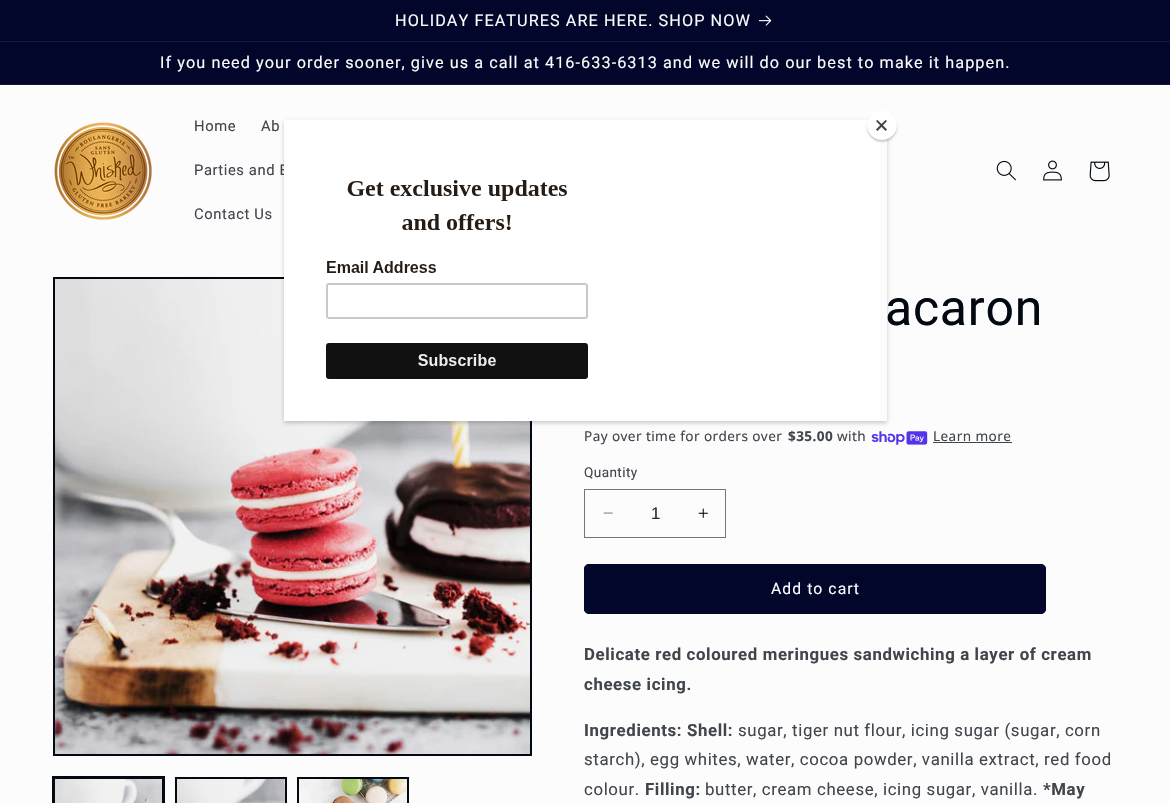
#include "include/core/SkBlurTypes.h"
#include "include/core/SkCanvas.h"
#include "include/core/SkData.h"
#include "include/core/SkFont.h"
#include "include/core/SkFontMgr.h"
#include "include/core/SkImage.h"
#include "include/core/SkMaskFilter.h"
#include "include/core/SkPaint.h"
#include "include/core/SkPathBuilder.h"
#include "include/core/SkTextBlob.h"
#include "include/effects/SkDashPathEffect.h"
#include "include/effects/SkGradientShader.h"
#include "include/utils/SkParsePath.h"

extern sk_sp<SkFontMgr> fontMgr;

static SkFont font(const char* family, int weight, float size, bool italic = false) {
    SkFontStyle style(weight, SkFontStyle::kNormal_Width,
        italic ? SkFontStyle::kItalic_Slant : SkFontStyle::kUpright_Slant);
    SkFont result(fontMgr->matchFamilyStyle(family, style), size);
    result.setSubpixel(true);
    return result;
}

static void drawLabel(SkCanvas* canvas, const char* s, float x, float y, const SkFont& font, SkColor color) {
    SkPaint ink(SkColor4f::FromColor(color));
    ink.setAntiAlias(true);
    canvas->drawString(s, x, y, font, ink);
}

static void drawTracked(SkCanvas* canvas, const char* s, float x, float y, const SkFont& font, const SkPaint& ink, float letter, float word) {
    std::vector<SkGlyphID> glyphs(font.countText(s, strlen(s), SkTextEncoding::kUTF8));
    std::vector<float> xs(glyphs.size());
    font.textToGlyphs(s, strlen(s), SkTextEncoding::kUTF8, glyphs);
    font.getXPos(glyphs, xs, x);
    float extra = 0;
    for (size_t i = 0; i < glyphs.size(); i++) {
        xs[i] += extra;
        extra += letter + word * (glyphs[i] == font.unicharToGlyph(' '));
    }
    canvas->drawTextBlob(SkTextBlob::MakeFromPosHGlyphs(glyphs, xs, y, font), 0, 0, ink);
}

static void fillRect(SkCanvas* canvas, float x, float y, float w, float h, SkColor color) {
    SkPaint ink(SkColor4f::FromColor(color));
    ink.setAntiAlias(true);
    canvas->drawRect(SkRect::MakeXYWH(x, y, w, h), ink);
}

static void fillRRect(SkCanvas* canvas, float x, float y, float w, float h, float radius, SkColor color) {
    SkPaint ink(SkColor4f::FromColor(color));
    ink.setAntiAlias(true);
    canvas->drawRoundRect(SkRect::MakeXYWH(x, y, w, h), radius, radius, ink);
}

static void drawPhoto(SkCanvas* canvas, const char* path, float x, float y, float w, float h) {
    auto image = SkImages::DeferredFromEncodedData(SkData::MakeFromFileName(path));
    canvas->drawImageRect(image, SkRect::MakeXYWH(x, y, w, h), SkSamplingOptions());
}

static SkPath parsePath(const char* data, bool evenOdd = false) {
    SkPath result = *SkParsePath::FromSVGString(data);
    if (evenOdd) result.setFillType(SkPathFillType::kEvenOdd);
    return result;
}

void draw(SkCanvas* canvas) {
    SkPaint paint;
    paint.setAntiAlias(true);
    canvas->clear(0xFFFCFCFC);
    fillRect(canvas, 0, 0, 1170, 41, 0xFF01062A);
    fillRect(canvas, 0, 41, 1170, 1, 0xFF151A3B);
    SkFont font1 = font("Roboto", 400, 16.25f);
    paint.setColor(0xFFFCFCFC);
    drawTracked(canvas, "HOLIDAY FEATURES ARE HERE. SHOP NOW", 395, 26, font1, paint, 1.05f, 0);
    drawPhoto(canvas, "assets/img1.png", 759, 15, 13, 11);
    fillRect(canvas, 0, 42, 1170, 42, 0xFF01062A);
    fillRect(canvas, 0, 84, 1170, 1, 0xFF151A3B);
    drawTracked(canvas, "If you need your order sooner, give us a call at 416-633-6313 and we will do our best to make it happen.", 160, 68, font1, paint, 1.05f, 0);
    drawPhoto(canvas, "assets/img2.png", 54, 122, 98, 98);
    SkFont font2 = font("Roboto", 400, 14.75f);
    paint.setColor(0xFF41464D);
    drawTracked(canvas, "Home", 194, 131, font2, paint, 0.63f, 0);
    drawTracked(canvas, "Ab", 261, 131, font2, paint, 0.63f, 0);
    drawTracked(canvas, "Parties and E", 194, 175, font2, paint, 0.63f, 0);
    drawTracked(canvas, "Contact Us", 194, 219, font2, paint, 0.63f, 0);
    drawPhoto(canvas, "assets/img3.png", 996, 160, 20, 21);
    drawPhoto(canvas, "assets/img4.png", 1043, 160, 19, 21);
    drawPhoto(canvas, "assets/img5.png", 1089, 161, 21, 21);
    paint.setStroke(true);
    paint.setStrokeWidth(2);
    paint.setColor(0xFF020912);
    canvas->drawRect(SkRect::MakeXYWH(54, 278, 477, 477), paint);
    drawPhoto(canvas, "assets/img7.png", 55, 279, 475, 475);
    canvas->save();
    canvas->clipPath(parsePath("M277 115H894V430H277ZM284 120H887V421H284Z", true), true);
    paint.setStroke(false);
    paint.setColor(0x33000000);
    paint.setMaskFilter(SkMaskFilter::MakeBlur(kNormal_SkBlurStyle, 2));
    canvas->drawRect(SkRect::MakeXYWH(284, 122, 603, 301), paint);
    paint.setMaskFilter(nullptr);
    canvas->restore();
    drawPhoto(canvas, "assets/img6.png", 284, 120, 596, 301);
    paint.setMaskFilter(SkMaskFilter::MakeBlur(kNormal_SkBlurStyle, 1));
    canvas->drawRoundRect(SkRect::MakeXYWH(867, 112, 30, 30), 15, 15, paint);
    paint.setMaskFilter(nullptr);
    paint.setColor(0xFFFFFFFF);
    canvas->drawCircle(882, 125, 15, paint);
    paint.setColor(0xFF414141);
    canvas->drawPath(parsePath("M885.5 120L887 121L877.5 131L876 129.5Z"), paint);
    canvas->drawPath(parsePath("M876 121L877.5 120L887 129.5L885.5 131Z"), paint);
    paint.setStroke(true);
    paint.setStrokeWidth(1);
    paint.setColor(0xFF020912);
    canvas->drawRect(SkRect::MakeXYWH(52.5f, 776.5f, 112, 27), paint);
    paint.setStrokeWidth(2);
    canvas->drawRect(SkRect::MakeXYWH(54, 778, 109, 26), paint);
    drawPhoto(canvas, "assets/img8.png", 55, 779, 107, 24);
    canvas->drawRect(SkRect::MakeXYWH(176, 778, 110, 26), paint);
    drawPhoto(canvas, "assets/img9.png", 177, 779, 108, 24);
    canvas->drawRect(SkRect::MakeXYWH(298, 778, 110, 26), paint);
    drawPhoto(canvas, "assets/img10.png", 299, 779, 108, 24);
    SkFont font3 = font("Roboto", 400, 50);
    paint.setStroke(false);
    drawTracked(canvas, "acaron", 885, 325, font3, paint, 0.75f, 0);
    SkFont font4 = font("Noto Sans", 400, 13.6f);
    paint.setColor(0xFF41464D);
    drawTracked(canvas, "Pay over time for orders over", 584, 441, font4, paint, 0.4f, 0);
    SkFont font5 = font("Noto Sans", 700, 13.6f);
    drawTracked(canvas, "$35.00", 788, 441, font5, paint, 0.4f, 0);
    drawTracked(canvas, "with", 837, 441, font4, paint, 0.4f, 0);
    drawPhoto(canvas, "assets/img11.png", 871, 431, 57, 14);
    drawTracked(canvas, "Learn more", 933, 441, font4, paint, 0.4f, 0);
    fillRect(canvas, 933, 442, 79, 1, 0xFF41464D);
    SkFont font6 = font("Roboto", 400, 13.6f);
    drawTracked(canvas, "Quantity", 584, 477, font6, paint, 0.4f, 0);
    drawPhoto(canvas, "assets/img12.png", 603, 512, 10, 2);
    drawPhoto(canvas, "assets/img13.png", 698, 508, 10, 10);
    paint.setStroke(true);
    paint.setStrokeWidth(1);
    paint.setColor(0xFF72767B);
    canvas->drawRect(SkRect::MakeXYWH(584.5f, 489.5f, 141, 48), paint);
    SkFont font7 = font("Liberation Sans", 400, 16.8f);
    drawLabel(canvas, "1", 651, 519, font7, 0xFF282D35);
    fillRRect(canvas, 584, 564, 462, 50, 5, 0xFF01062A);
    paint.setColor(0xFF01062A);
    canvas->drawRoundRect(SkRect::MakeXYWH(584.5f, 564.5f, 461, 49), 4.5f, 4.5f, paint);
    SkFont font8 = font("Roboto", 400, 15.75f);
    paint.setStroke(false);
    paint.setColor(0xFFFCFCFC);
    drawTracked(canvas, "Add to cart", 771, 594, font8, paint, 1.05f, 0);
    SkFont font9 = font("Roboto", 700, 16.8f);
    paint.setColor(0xFF41464D);
    drawTracked(canvas, "Delicate red coloured meringues sandwiching a layer of cream", 584, 660, font9, paint, 0.63f, 0);
    drawTracked(canvas, "cheese icing.", 584, 690, font9, paint, 0.63f, 0);
    drawTracked(canvas, "Ingredients: Shell:", 584, 736, font9, paint, 0.63f, 0);
    SkFont font10 = font("Roboto", 400, 16.8f);
    drawTracked(canvas, "sugar, tiger nut flour, icing sugar (sugar, corn", 738, 736, font10, paint, 0.63f, 0);
    drawTracked(canvas, "starch), egg whites, water, cocoa powder, vanilla extract, red food", 584, 765, font10, paint, 0.63f, 0);
    drawTracked(canvas, "colour.", 584, 795, font10, paint, 0.63f, 0);
    drawTracked(canvas, "Filling:", 645, 795, font9, paint, 0.63f, 0);
    drawTracked(canvas, "butter, cream cheese, icing sugar, vanilla.", 705, 795, font10, paint, 0.63f, 0);
    drawTracked(canvas, "*May", 1043, 795, font9, paint, 0.63f, 0);
}
